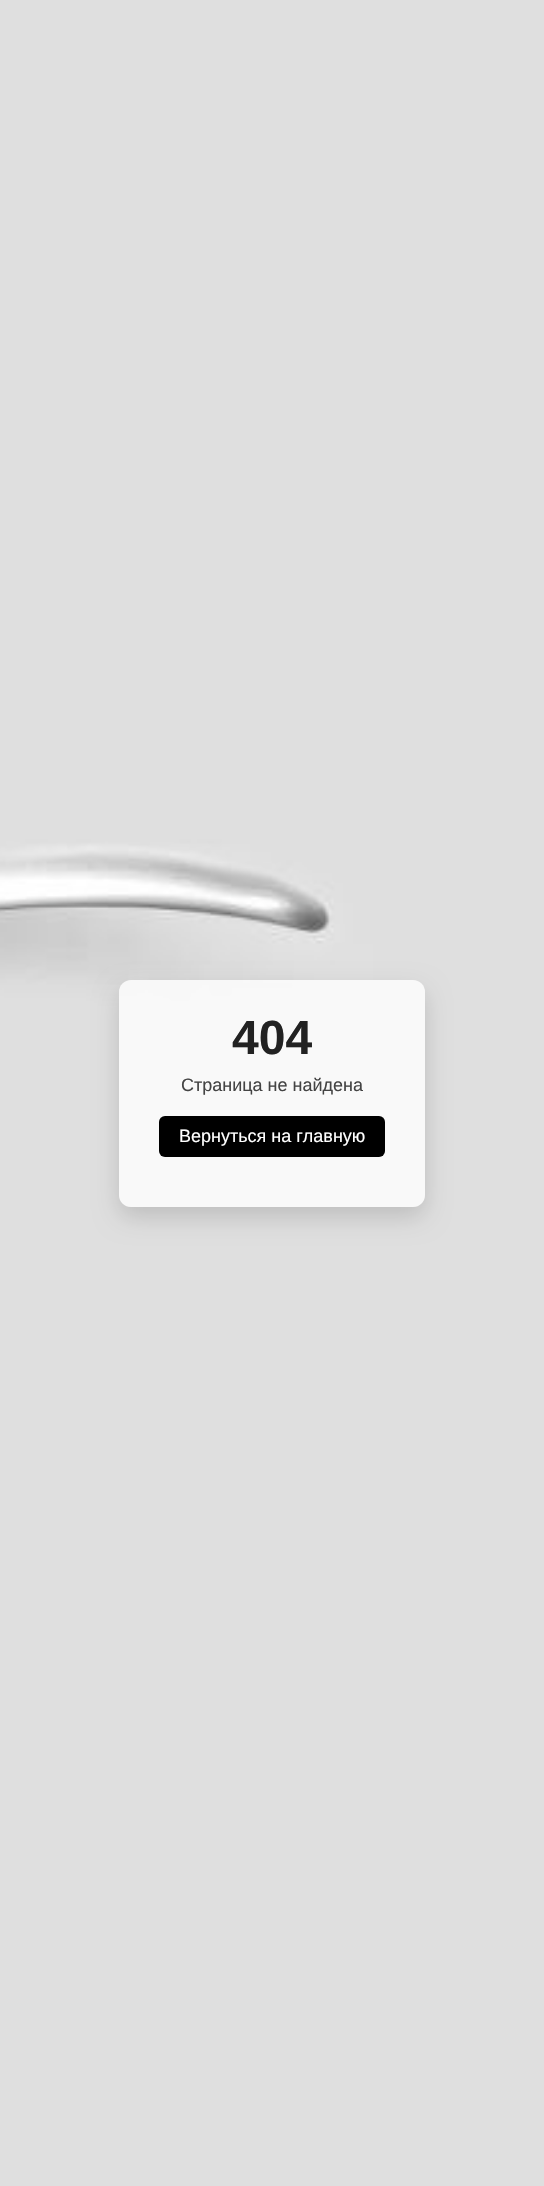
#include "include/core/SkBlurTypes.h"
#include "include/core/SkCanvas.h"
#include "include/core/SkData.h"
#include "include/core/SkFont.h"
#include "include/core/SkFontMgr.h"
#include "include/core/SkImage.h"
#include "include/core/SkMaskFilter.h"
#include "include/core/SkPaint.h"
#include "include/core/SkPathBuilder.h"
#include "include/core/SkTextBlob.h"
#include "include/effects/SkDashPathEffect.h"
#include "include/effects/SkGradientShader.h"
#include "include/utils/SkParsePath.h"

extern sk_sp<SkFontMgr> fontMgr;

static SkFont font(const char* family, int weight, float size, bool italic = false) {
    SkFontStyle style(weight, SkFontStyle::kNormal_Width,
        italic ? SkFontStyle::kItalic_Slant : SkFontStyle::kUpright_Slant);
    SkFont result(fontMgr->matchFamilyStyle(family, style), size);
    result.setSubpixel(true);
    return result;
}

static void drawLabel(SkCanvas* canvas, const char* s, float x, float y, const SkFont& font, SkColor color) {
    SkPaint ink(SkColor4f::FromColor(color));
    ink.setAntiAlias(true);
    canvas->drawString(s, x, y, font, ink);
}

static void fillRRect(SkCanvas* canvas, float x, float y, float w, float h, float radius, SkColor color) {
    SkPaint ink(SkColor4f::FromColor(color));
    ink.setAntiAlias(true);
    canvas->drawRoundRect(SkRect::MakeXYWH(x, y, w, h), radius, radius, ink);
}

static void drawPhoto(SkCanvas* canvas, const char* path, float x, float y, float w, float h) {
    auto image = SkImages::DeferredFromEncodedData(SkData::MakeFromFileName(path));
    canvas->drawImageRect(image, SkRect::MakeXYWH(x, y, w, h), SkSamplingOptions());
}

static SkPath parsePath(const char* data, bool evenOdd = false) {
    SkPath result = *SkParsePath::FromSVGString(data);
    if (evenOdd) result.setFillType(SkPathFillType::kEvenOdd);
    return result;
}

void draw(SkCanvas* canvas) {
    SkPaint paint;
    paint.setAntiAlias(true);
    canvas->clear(0xFFFFFFFF);
    drawPhoto(canvas, "assets/img1.png", 0, 0, 544, 2186);
    canvas->save();
    canvas->clipPath(parsePath("M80 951H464V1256H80ZM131 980H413C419.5 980 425 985.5 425 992V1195C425 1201.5 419.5 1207 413 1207H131C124.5 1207 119 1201.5 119 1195V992C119 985.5 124.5 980 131 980Z", true), true);
    paint.setColor(0x26000000);
    paint.setMaskFilter(SkMaskFilter::MakeBlur(kNormal_SkBlurStyle, 12.5f));
    canvas->drawRoundRect(SkRect::MakeXYWH(119, 990, 306, 227), 12, 12, paint);
    paint.setMaskFilter(nullptr);
    canvas->restore();
    fillRRect(canvas, 119, 980, 306, 227, 12, 0xCCFFFFFF);
    SkFont font1 = font("Liberation Sans", 700, 48);
    drawLabel(canvas, "404", 232, 1054, font1, 0xFF222222);
    SkFont font2 = font("Liberation Sans", 400, 18);
    drawLabel(canvas, "Страница не найдена", 181, 1091, font2, 0xFF444444);
    fillRRect(canvas, 159, 1116, 226, 41, 6, 0xFF000000);
    drawLabel(canvas, "Вернуться на главную", 179, 1142, font2, 0xFFFFFFFF);
}
